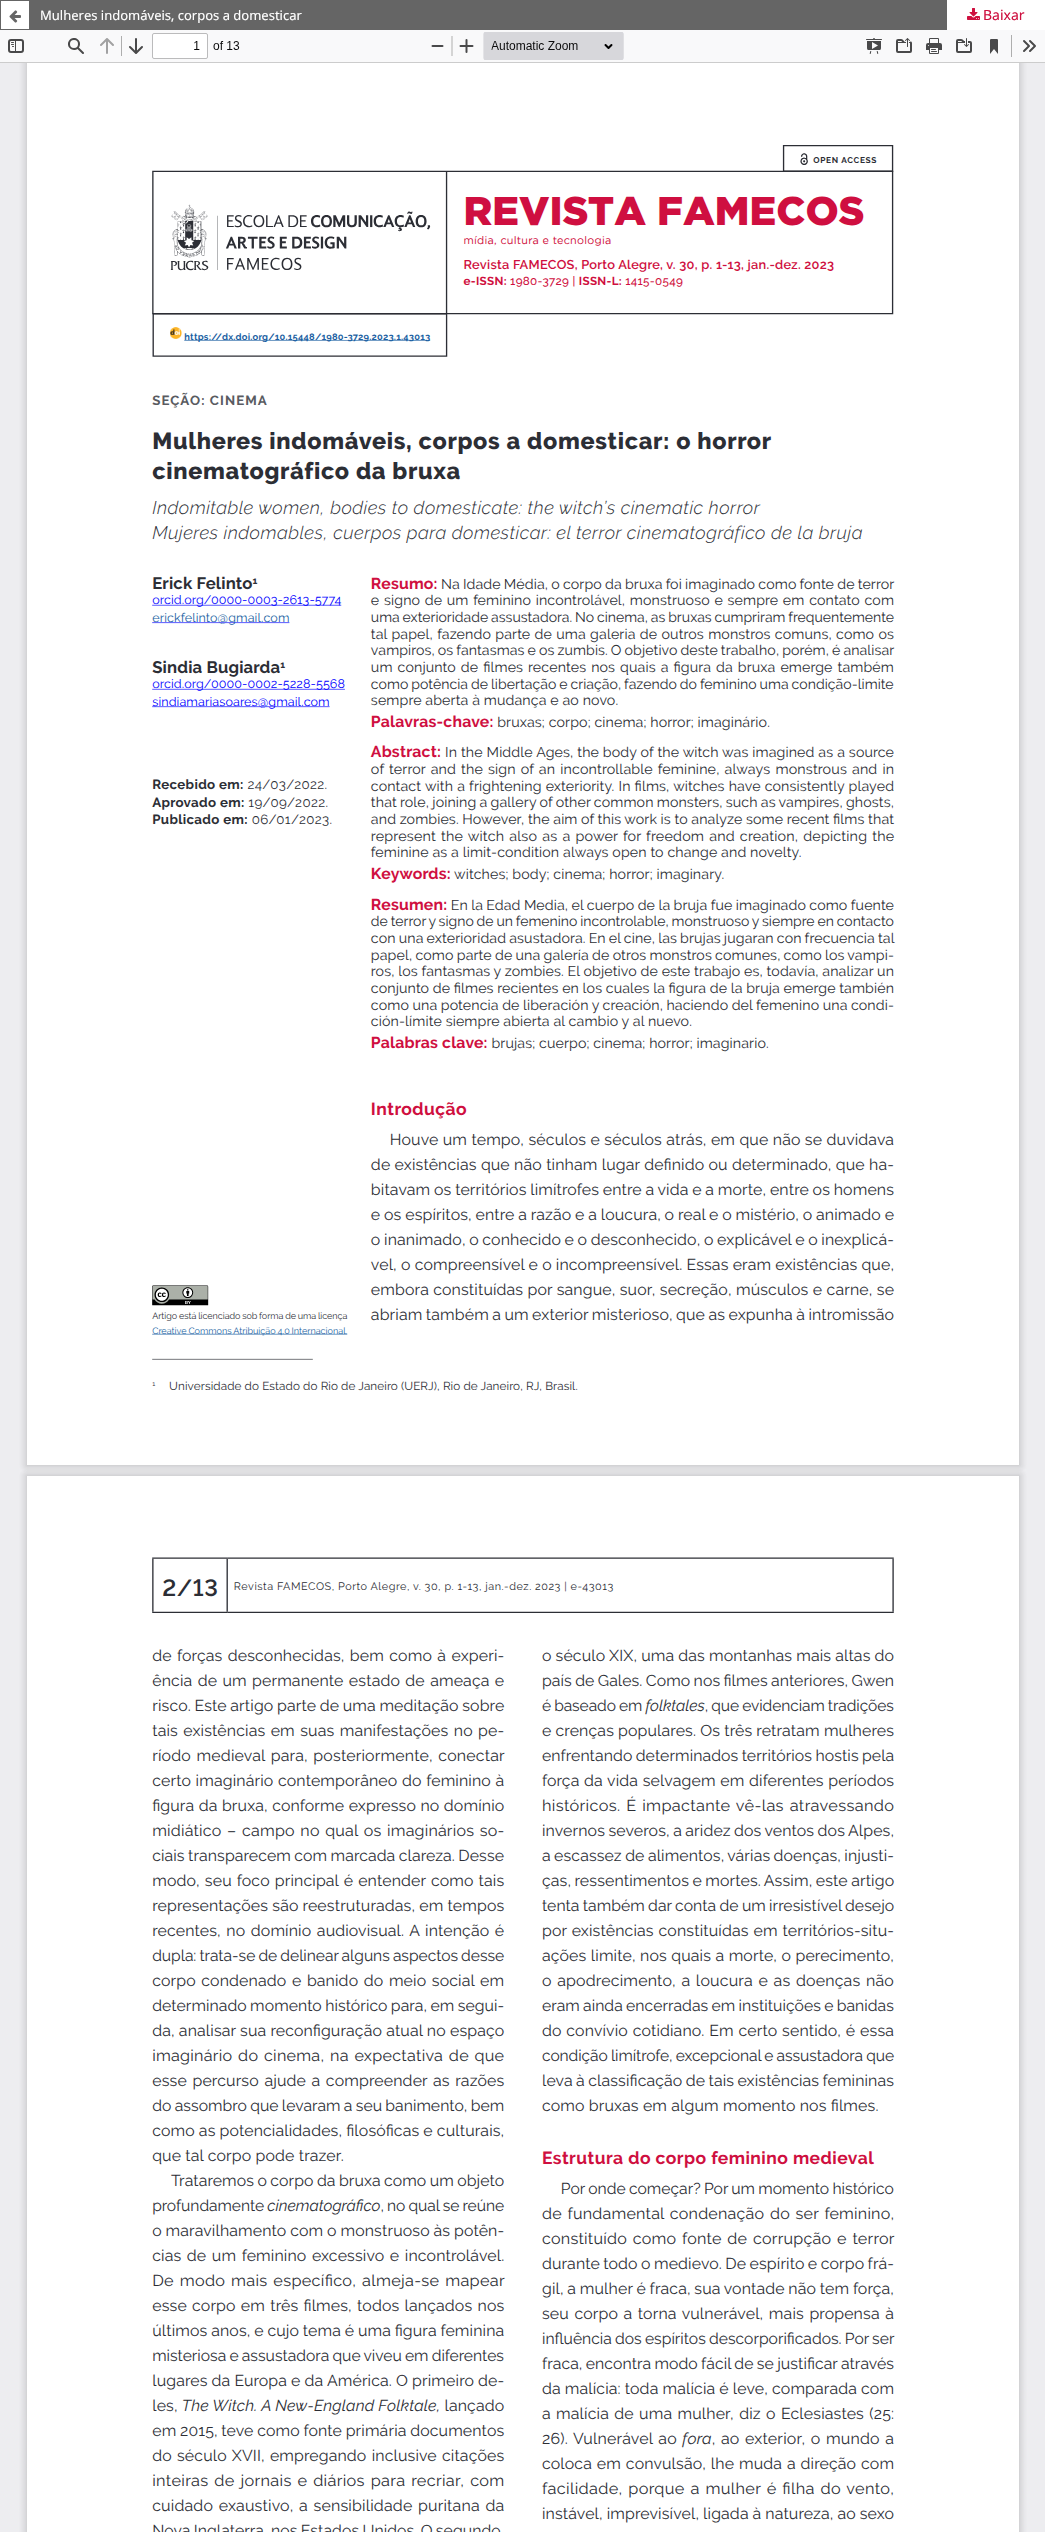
#include "include/core/SkBlurTypes.h"
#include "include/core/SkCanvas.h"
#include "include/core/SkData.h"
#include "include/core/SkFont.h"
#include "include/core/SkFontMgr.h"
#include "include/core/SkImage.h"
#include "include/core/SkMaskFilter.h"
#include "include/core/SkPaint.h"
#include "include/core/SkPathBuilder.h"
#include "include/core/SkTextBlob.h"
#include "include/effects/SkDashPathEffect.h"
#include "include/effects/SkGradientShader.h"
#include "include/utils/SkParsePath.h"

extern sk_sp<SkFontMgr> fontMgr;

static SkFont font(const char* family, int weight, float size, bool italic = false) {
    SkFontStyle style(weight, SkFontStyle::kNormal_Width,
        italic ? SkFontStyle::kItalic_Slant : SkFontStyle::kUpright_Slant);
    SkFont result(fontMgr->matchFamilyStyle(family, style), size);
    result.setSubpixel(true);
    return result;
}

static void drawLabel(SkCanvas* canvas, const char* s, float x, float y, const SkFont& font, SkColor color) {
    SkPaint ink(SkColor4f::FromColor(color));
    ink.setAntiAlias(true);
    canvas->drawString(s, x, y, font, ink);
}

static void fillRect(SkCanvas* canvas, float x, float y, float w, float h, SkColor color) {
    SkPaint ink(SkColor4f::FromColor(color));
    ink.setAntiAlias(true);
    canvas->drawRect(SkRect::MakeXYWH(x, y, w, h), ink);
}

static void drawPhoto(SkCanvas* canvas, const char* path, float x, float y, float w, float h) {
    auto image = SkImages::DeferredFromEncodedData(SkData::MakeFromFileName(path));
    canvas->drawImageRect(image, SkRect::MakeXYWH(x, y, w, h), SkSamplingOptions());
}

void draw(SkCanvas* canvas) {
    SkPaint paint;
    paint.setAntiAlias(true);
    canvas->clear(0xFFFFFFFF);
    fillRect(canvas, 30, 0, 917, 30, 0xFF656565);
    paint.setStroke(true);
    paint.setStrokeWidth(1);
    paint.setColor(0xFF656565);
    canvas->drawRect(SkRect::MakeXYWH(0.5f, 0.5f, 29, 29), paint);
    drawPhoto(canvas, "assets/img1.png", 9, 10, 12, 13);
    SkFont font1 = font("Noto Sans", 400, 13);
    drawLabel(canvas, "Mulheres indomáveis, corpos a domesticar", 40, 20, font1, 0xFFFFFFFF);
    drawPhoto(canvas, "assets/img2.png", 967, 8, 13, 12);
    SkFont font2 = font("Noto Sans", 400, 14);
    drawLabel(canvas, "Baixar", 983, 20, font2, 0xFFCE103F);
    drawPhoto(canvas, "assets/img3.png", 0, 30, 1045, 2502);
}
